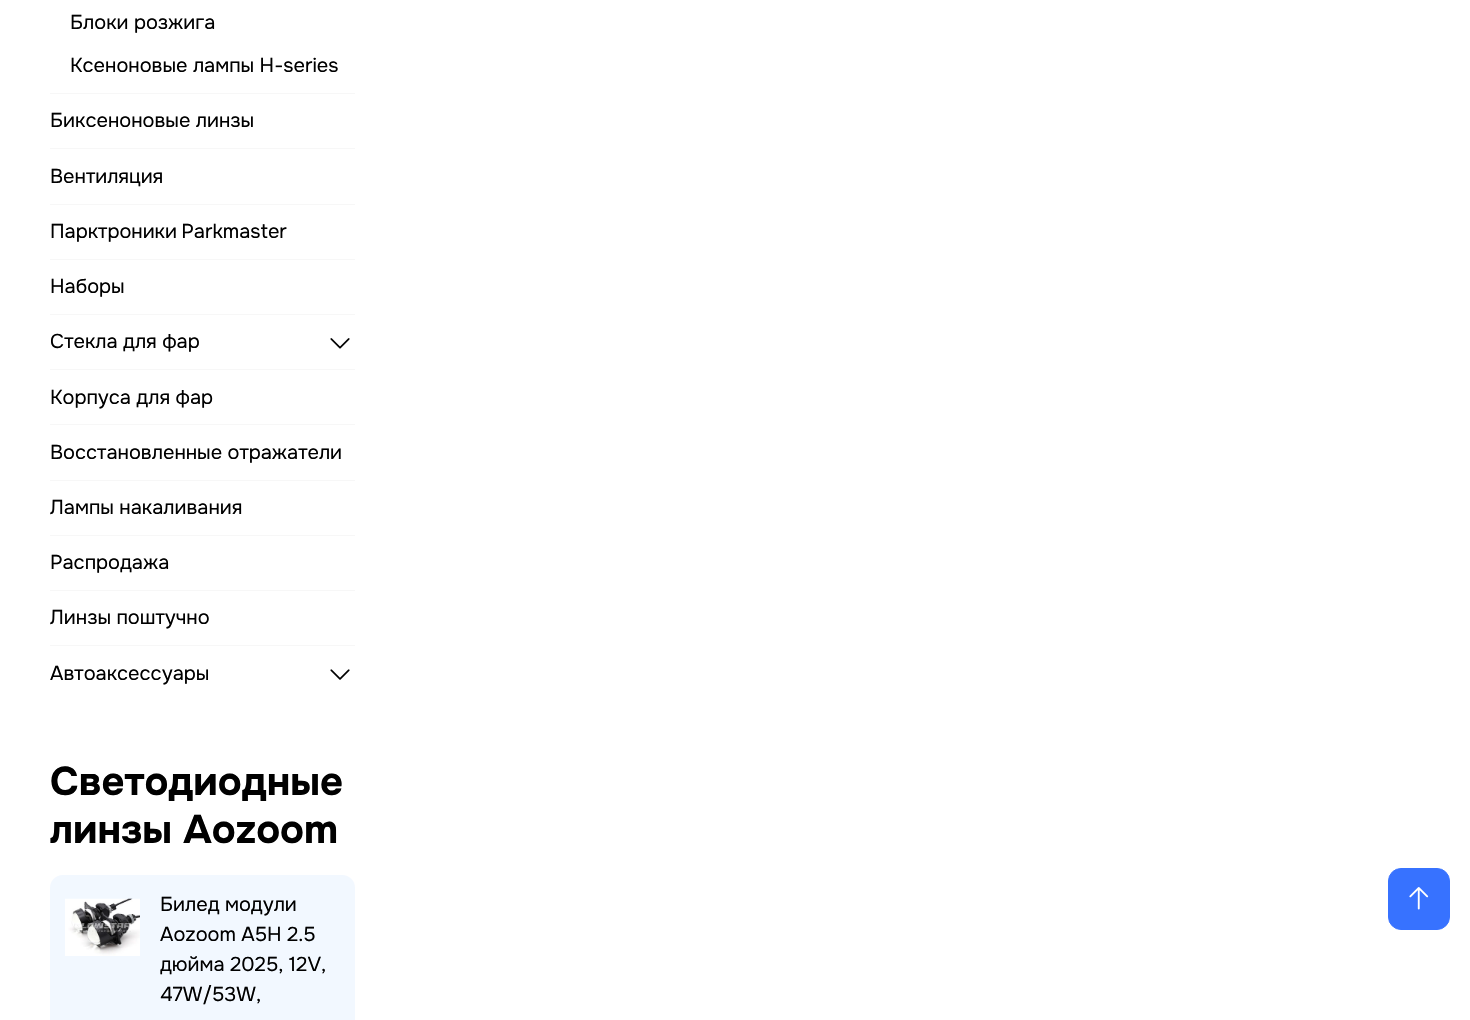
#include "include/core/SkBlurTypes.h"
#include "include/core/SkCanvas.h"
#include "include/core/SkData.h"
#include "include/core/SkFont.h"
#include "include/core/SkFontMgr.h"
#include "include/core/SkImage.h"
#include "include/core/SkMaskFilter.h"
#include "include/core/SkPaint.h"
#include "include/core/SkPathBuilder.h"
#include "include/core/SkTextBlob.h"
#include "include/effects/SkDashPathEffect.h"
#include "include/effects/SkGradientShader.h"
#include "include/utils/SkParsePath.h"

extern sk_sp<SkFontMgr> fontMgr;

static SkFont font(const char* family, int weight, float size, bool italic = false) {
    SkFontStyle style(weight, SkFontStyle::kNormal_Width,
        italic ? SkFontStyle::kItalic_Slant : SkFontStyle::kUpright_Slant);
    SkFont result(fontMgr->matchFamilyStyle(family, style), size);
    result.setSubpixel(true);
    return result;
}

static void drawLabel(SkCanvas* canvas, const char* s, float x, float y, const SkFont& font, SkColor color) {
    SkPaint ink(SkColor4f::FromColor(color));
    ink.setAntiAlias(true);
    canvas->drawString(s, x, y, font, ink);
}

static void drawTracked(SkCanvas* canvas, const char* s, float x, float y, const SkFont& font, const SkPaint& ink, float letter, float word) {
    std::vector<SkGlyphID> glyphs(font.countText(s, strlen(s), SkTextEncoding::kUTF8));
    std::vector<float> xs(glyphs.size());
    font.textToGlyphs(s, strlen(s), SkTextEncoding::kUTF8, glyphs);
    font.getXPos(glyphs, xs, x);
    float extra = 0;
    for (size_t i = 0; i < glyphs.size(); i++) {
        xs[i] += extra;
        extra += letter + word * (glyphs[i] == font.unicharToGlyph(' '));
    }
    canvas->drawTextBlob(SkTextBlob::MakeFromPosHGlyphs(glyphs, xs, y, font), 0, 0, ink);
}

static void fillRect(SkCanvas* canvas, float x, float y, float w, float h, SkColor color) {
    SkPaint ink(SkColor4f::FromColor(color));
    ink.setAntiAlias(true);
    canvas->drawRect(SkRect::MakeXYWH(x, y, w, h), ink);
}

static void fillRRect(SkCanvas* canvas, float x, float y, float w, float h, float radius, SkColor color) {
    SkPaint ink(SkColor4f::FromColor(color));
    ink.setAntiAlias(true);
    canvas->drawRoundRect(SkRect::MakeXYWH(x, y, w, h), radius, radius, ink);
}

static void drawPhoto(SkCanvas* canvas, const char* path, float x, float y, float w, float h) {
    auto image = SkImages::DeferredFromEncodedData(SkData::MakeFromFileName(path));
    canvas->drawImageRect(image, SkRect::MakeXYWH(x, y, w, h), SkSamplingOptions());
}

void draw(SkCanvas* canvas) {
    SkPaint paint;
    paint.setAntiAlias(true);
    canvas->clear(0xFFFFFFFF);
    fillRect(canvas, 50, 93, 305, 1, 0xFFF7F7F7);
    SkFont font1 = font("Onest", 400, 20);
    drawLabel(canvas, "Блоки розжига", 70, 29, font1, 0xFF000000);
    drawLabel(canvas, "Ксеноновые лампы H-series", 70, 72, font1, 0xFF000000);
    fillRect(canvas, 50, 148, 305, 1, 0xFFF7F7F7);
    drawLabel(canvas, "Биксеноновые линзы", 50, 127, font1, 0xFF000000);
    fillRect(canvas, 50, 204, 305, 1, 0xFFF7F7F7);
    drawLabel(canvas, "Вентиляция", 50, 183, font1, 0xFF000000);
    fillRect(canvas, 50, 259, 305, 1, 0xFFF7F7F7);
    paint.setColor(0xFF000000);
    drawTracked(canvas, "Парктроники Parkmaster", 50, 238, font1, paint, 0, -1);
    fillRect(canvas, 50, 314, 305, 1, 0xFFF7F7F7);
    drawLabel(canvas, "Наборы", 50, 293, font1, 0xFF000000);
    fillRect(canvas, 50, 369, 305, 1, 0xFFF7F7F7);
    drawLabel(canvas, "Стекла для фар", 50, 348, font1, 0xFF000000);
    drawPhoto(canvas, "assets/img1.png", 330, 338, 20, 11);
    fillRect(canvas, 50, 424, 305, 1, 0xFFF7F7F7);
    drawLabel(canvas, "Корпуса для фар", 50, 404, font1, 0xFF000000);
    fillRect(canvas, 50, 480, 305, 1, 0xFFF7F7F7);
    drawLabel(canvas, "Восстановленные отражатели", 50, 459, font1, 0xFF000000);
    fillRect(canvas, 50, 535, 305, 1, 0xFFF7F7F7);
    drawLabel(canvas, "Лампы накаливания", 50, 514, font1, 0xFF000000);
    fillRect(canvas, 50, 590, 305, 1, 0xFFF7F7F7);
    drawLabel(canvas, "Распродажа", 50, 569, font1, 0xFF000000);
    fillRect(canvas, 50, 645, 305, 1, 0xFFF7F7F7);
    drawLabel(canvas, "Линзы поштучно", 50, 624, font1, 0xFF000000);
    drawLabel(canvas, "Автоаксессуары", 50, 680, font1, 0xFF000000);
    drawPhoto(canvas, "assets/img2.png", 330, 669, 20, 11);
    SkFont font2 = font("Onest", 700, 40);
    drawLabel(canvas, "Светодиодные", 50, 795, font2, 0xFF000000);
    drawLabel(canvas, "линзы Aozoom", 50, 843, font2, 0xFF000000);
    fillRRect(canvas, 50, 875, 305, 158, 13, 0xFFF2F8FF);
    drawPhoto(canvas, "assets/img3.png", 65, 898, 75, 58);
    drawLabel(canvas, "Билед модули", 160, 911, font1, 0xFF000000);
    drawLabel(canvas, "Aozoom A5H 2.5", 160, 941, font1, 0xFF000000);
    drawLabel(canvas, "дюйма 2025, 12V,", 160, 971, font1, 0xFF000000);
    drawLabel(canvas, "47W/53W,", 160, 1001, font1, 0xFF000000);
    paint.setColor(0xFF3772FF);
    canvas->drawRoundRect(SkRect::MakeXYWH(1388.5f, 868.5f, 61, 61), 12.5f, 12.5f, paint);
    paint.setStroke(true);
    paint.setStrokeWidth(1);
    canvas->drawRoundRect(SkRect::MakeXYWH(1388.5f, 868.5f, 61, 61), 12.5f, 12.5f, paint);
    drawPhoto(canvas, "assets/img4.png", 1409, 887, 20, 23);
}
